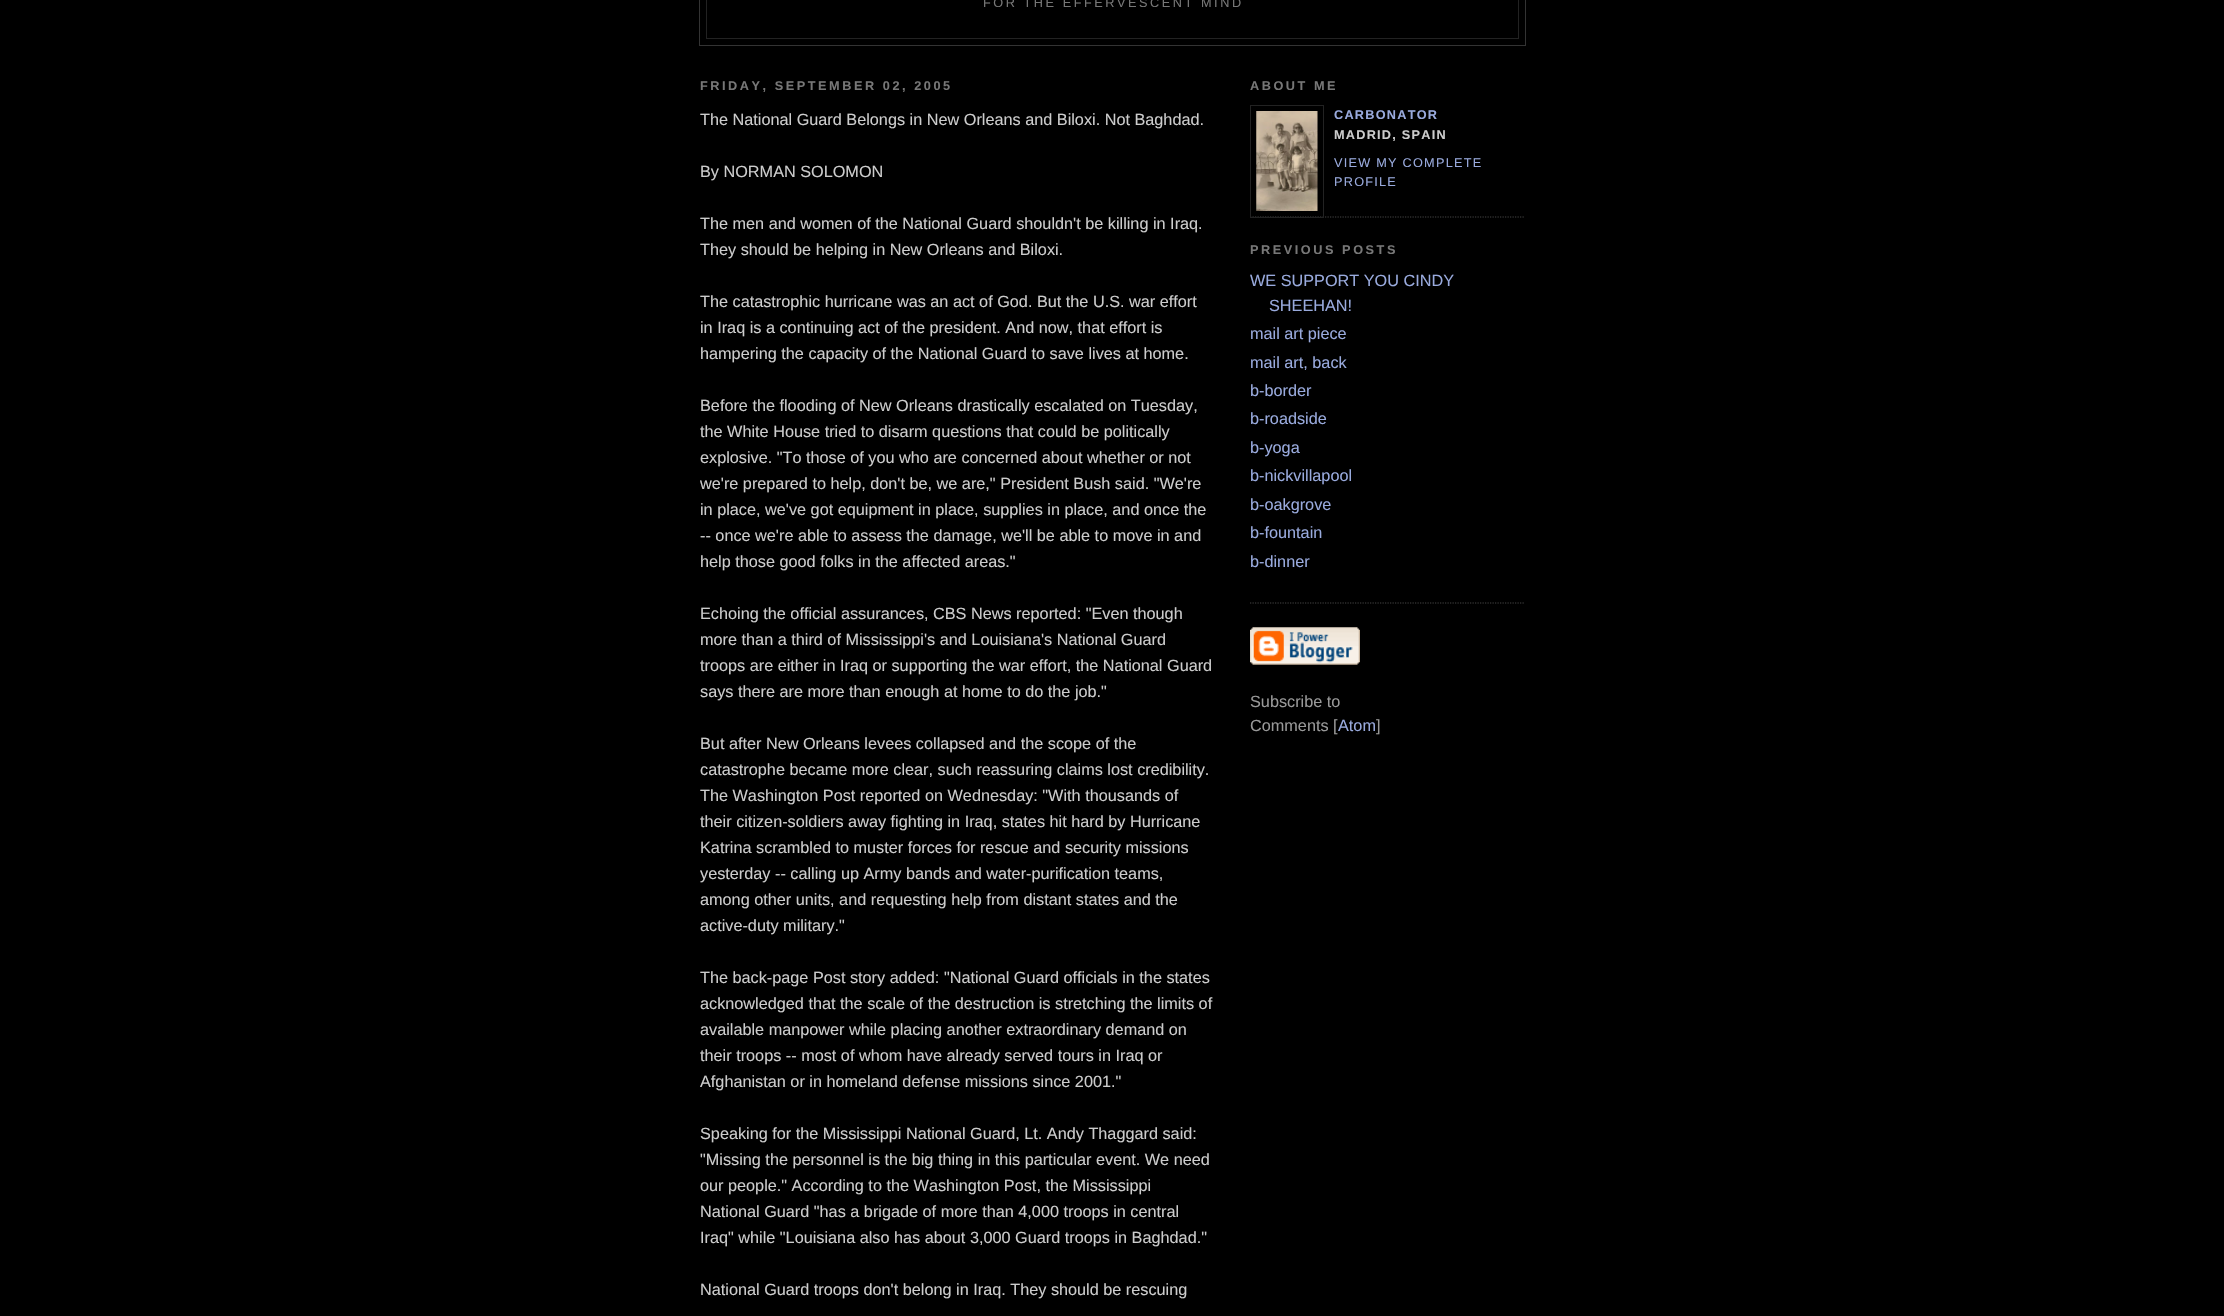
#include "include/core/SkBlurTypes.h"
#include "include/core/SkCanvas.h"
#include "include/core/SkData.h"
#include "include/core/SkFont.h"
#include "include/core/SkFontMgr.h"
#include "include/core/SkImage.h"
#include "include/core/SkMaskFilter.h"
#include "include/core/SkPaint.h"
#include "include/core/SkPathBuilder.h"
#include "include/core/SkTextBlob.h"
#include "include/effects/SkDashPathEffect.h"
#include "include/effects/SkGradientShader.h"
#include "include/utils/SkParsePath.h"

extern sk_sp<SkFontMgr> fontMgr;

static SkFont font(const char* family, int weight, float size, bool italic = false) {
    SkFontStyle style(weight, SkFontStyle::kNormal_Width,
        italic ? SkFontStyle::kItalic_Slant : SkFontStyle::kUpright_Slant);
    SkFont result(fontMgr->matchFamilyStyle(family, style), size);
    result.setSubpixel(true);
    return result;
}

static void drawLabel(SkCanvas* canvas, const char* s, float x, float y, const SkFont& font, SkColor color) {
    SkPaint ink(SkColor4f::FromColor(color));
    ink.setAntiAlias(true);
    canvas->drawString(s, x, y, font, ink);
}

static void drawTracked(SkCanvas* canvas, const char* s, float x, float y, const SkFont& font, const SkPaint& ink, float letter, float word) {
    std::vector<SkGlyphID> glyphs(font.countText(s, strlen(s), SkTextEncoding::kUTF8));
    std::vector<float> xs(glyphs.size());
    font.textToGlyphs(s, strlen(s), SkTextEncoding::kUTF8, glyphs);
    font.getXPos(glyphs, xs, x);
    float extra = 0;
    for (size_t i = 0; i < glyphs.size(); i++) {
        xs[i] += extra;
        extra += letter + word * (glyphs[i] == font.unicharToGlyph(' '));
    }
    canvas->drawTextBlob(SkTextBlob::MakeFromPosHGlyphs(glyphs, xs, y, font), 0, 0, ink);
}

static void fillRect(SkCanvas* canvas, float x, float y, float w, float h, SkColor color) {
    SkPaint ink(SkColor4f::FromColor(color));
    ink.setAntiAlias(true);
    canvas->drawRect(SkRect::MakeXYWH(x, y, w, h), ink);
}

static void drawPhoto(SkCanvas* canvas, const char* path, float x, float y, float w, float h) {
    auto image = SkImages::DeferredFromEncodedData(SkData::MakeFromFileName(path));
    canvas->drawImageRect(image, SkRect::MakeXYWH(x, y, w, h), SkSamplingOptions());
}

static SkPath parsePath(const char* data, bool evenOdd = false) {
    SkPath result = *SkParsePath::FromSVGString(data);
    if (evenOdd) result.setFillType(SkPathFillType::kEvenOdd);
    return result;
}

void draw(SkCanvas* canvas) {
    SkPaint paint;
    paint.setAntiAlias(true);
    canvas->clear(0xFF000000);
    paint.setStroke(true);
    paint.setStrokeWidth(1);
    paint.setColor(0xFF333333);
    canvas->drawRect(SkRect::MakeXYWH(699.5f, -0.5f, 826, 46), paint);
    fillRect(canvas, 1518, 0, 1, 39, 0xFF222222);
    fillRect(canvas, 706, 38, 813, 1, 0xFF222222);
    fillRect(canvas, 706, 0, 1, 39, 0xFF222222);
    SkFont font1 = font("Liberation Sans", 400, 12.7f);
    paint.setStroke(false);
    paint.setColor(0xFF777777);
    drawTracked(canvas, "FOR THE EFFERVESCENT MIND", 983, 7, font1, paint, 2.55f, 0);
    SkFont font2 = font("Liberation Sans", 700, 12.7f);
    drawTracked(canvas, "FRIDAY, SEPTEMBER 02, 2005", 700, 90, font2, paint, 2.55f, 0);
    SkFont font3 = font("Liberation Sans", 400, 16.25f);
    drawLabel(canvas, "The National Guard Belongs in New Orleans and Biloxi. Not Baghdad.", 700, 125, font3, 0xFFCCCCCC);
    drawLabel(canvas, "By NORMAN SOLOMON", 700, 177, font3, 0xFFCCCCCC);
    drawLabel(canvas, "The men and women of the National Guard shouldn't be killing in Iraq.", 700, 229, font3, 0xFFCCCCCC);
    drawLabel(canvas, "They should be helping in New Orleans and Biloxi.", 700, 255, font3, 0xFFCCCCCC);
    drawLabel(canvas, "The catastrophic hurricane was an act of God. But the U.S. war effort", 700, 307, font3, 0xFFCCCCCC);
    drawLabel(canvas, "in Iraq is a continuing act of the president. And now, that effort is", 700, 333, font3, 0xFFCCCCCC);
    drawLabel(canvas, "hampering the capacity of the National Guard to save lives at home.", 700, 359, font3, 0xFFCCCCCC);
    drawLabel(canvas, "Before the flooding of New Orleans drastically escalated on Tuesday,", 700, 411, font3, 0xFFCCCCCC);
    drawLabel(canvas, "the White House tried to disarm questions that could be politically", 700, 437, font3, 0xFFCCCCCC);
    drawLabel(canvas, "explosive. \"To those of you who are concerned about whether or not", 700, 463, font3, 0xFFCCCCCC);
    drawLabel(canvas, "we're prepared to help, don't be, we are,\" President Bush said. \"We're", 700, 489, font3, 0xFFCCCCCC);
    drawLabel(canvas, "in place, we've got equipment in place, supplies in place, and once the", 700, 515, font3, 0xFFCCCCCC);
    drawLabel(canvas, "-- once we're able to assess the damage, we'll be able to move in and", 700, 541, font3, 0xFFCCCCCC);
    drawLabel(canvas, "help those good folks in the affected areas.\"", 700, 567, font3, 0xFFCCCCCC);
    drawLabel(canvas, "Echoing the official assurances, CBS News reported: \"Even though", 700, 619, font3, 0xFFCCCCCC);
    drawLabel(canvas, "more than a third of Mississippi's and Louisiana's National Guard", 700, 645, font3, 0xFFCCCCCC);
    drawLabel(canvas, "troops are either in Iraq or supporting the war effort, the National Guard", 700, 671, font3, 0xFFCCCCCC);
    drawLabel(canvas, "says there are more than enough at home to do the job.\"", 700, 697, font3, 0xFFCCCCCC);
    drawLabel(canvas, "But after New Orleans levees collapsed and the scope of the", 700, 749, font3, 0xFFCCCCCC);
    drawLabel(canvas, "catastrophe became more clear, such reassuring claims lost credibility.", 700, 775, font3, 0xFFCCCCCC);
    drawLabel(canvas, "The Washington Post reported on Wednesday: \"With thousands of", 700, 801, font3, 0xFFCCCCCC);
    drawLabel(canvas, "their citizen-soldiers away fighting in Iraq, states hit hard by Hurricane", 700, 827, font3, 0xFFCCCCCC);
    drawLabel(canvas, "Katrina scrambled to muster forces for rescue and security missions", 700, 853, font3, 0xFFCCCCCC);
    drawLabel(canvas, "yesterday -- calling up Army bands and water-purification teams,", 700, 879, font3, 0xFFCCCCCC);
    drawLabel(canvas, "among other units, and requesting help from distant states and the", 700, 905, font3, 0xFFCCCCCC);
    drawLabel(canvas, "active-duty military.\"", 700, 931, font3, 0xFFCCCCCC);
    drawLabel(canvas, "The back-page Post story added: \"National Guard officials in the states", 700, 983, font3, 0xFFCCCCCC);
    drawLabel(canvas, "acknowledged that the scale of the destruction is stretching the limits of", 700, 1009, font3, 0xFFCCCCCC);
    drawLabel(canvas, "available manpower while placing another extraordinary demand on", 700, 1035, font3, 0xFFCCCCCC);
    drawLabel(canvas, "their troops -- most of whom have already served tours in Iraq or", 700, 1061, font3, 0xFFCCCCCC);
    drawLabel(canvas, "Afghanistan or in homeland defense missions since 2001.\"", 700, 1087, font3, 0xFFCCCCCC);
    drawLabel(canvas, "Speaking for the Mississippi National Guard, Lt. Andy Thaggard said:", 700, 1139, font3, 0xFFCCCCCC);
    drawLabel(canvas, "\"Missing the personnel is the big thing in this particular event. We need", 700, 1165, font3, 0xFFCCCCCC);
    drawLabel(canvas, "our people.\" According to the Washington Post, the Mississippi", 700, 1191, font3, 0xFFCCCCCC);
    drawLabel(canvas, "National Guard \"has a brigade of more than 4,000 troops in central", 700, 1217, font3, 0xFFCCCCCC);
    drawLabel(canvas, "Iraq\" while \"Louisiana also has about 3,000 Guard troops in Baghdad.\"", 700, 1243, font3, 0xFFCCCCCC);
    drawLabel(canvas, "National Guard troops don't belong in Iraq. They should be rescuing", 700, 1295, font3, 0xFFCCCCCC);
    paint.setStroke(true);
    paint.setStrokeWidth(1.2f);
    paint.setColor(0xFF444444);
    paint.setPathEffect(SkDashPathEffect::Make({{1.25f, 1.25f}}, 0));
    canvas->drawPath(parsePath("M1250 217H1525"), paint);
    paint.setPathEffect(nullptr);
    paint.setStroke(false);
    paint.setColor(0xFF777777);
    drawTracked(canvas, "ABOUT ME", 1250, 90, font2, paint, 2.55f, 0);
    paint.setStroke(true);
    paint.setStrokeWidth(1);
    paint.setColor(0xFF222222);
    canvas->drawRect(SkRect::MakeXYWH(1250.5f, 105.5f, 73, 112), paint);
    drawPhoto(canvas, "assets/img1.png", 1256, 111, 62, 100);
    paint.setStroke(false);
    paint.setColor(0xFF99AADD);
    drawTracked(canvas, "CARBONATOR", 1334, 119, font2, paint, 1.25f, 0);
    paint.setColor(0xFFCCCCCC);
    drawTracked(canvas, "MADRID, SPAIN", 1334, 139, font2, paint, 1.25f, 0);
    paint.setColor(0xFF99AADD);
    drawTracked(canvas, "VIEW MY COMPLETE", 1334, 167, font1, paint, 1.25f, 0);
    drawTracked(canvas, "PROFILE", 1334, 186, font1, paint, 1.25f, 0);
    paint.setColor(0xFF777777);
    drawTracked(canvas, "PREVIOUS POSTS", 1250, 254, font2, paint, 2.55f, 0);
    paint.setStroke(true);
    paint.setStrokeWidth(1.2f);
    paint.setColor(0xFF444444);
    paint.setPathEffect(SkDashPathEffect::Make({{1.25f, 1.25f}}, 0));
    canvas->drawPath(parsePath("M1250 603H1525"), paint);
    paint.setPathEffect(nullptr);
    drawLabel(canvas, "WE SUPPORT YOU CINDY", 1250, 286, font3, 0xFF99AADD);
    drawLabel(canvas, "SHEEHAN!", 1269, 311, font3, 0xFF99AADD);
    drawLabel(canvas, "mail art piece", 1250, 339, font3, 0xFF99AADD);
    drawLabel(canvas, "mail art, back", 1250, 368, font3, 0xFF99AADD);
    drawLabel(canvas, "b-border", 1250, 396, font3, 0xFF99AADD);
    drawLabel(canvas, "b-roadside", 1250, 424, font3, 0xFF99AADD);
    drawLabel(canvas, "b-yoga", 1250, 453, font3, 0xFF99AADD);
    drawLabel(canvas, "b-nickvillapool", 1250, 481, font3, 0xFF99AADD);
    drawLabel(canvas, "b-oakgrove", 1250, 510, font3, 0xFF99AADD);
    drawLabel(canvas, "b-fountain", 1250, 538, font3, 0xFF99AADD);
    drawLabel(canvas, "b-dinner", 1250, 567, font3, 0xFF99AADD);
    drawPhoto(canvas, "assets/img2.png", 1250, 627, 110, 38);
    drawLabel(canvas, "Subscribe to", 1250, 707, font3, 0xFF999999);
    drawLabel(canvas, "Comments [", 1250, 731, font3, 0xFF999999);
    drawLabel(canvas, "Atom", 1338, 731, font3, 0xFF99AADD);
    drawLabel(canvas, "]", 1376, 731, font3, 0xFF999999);
}
